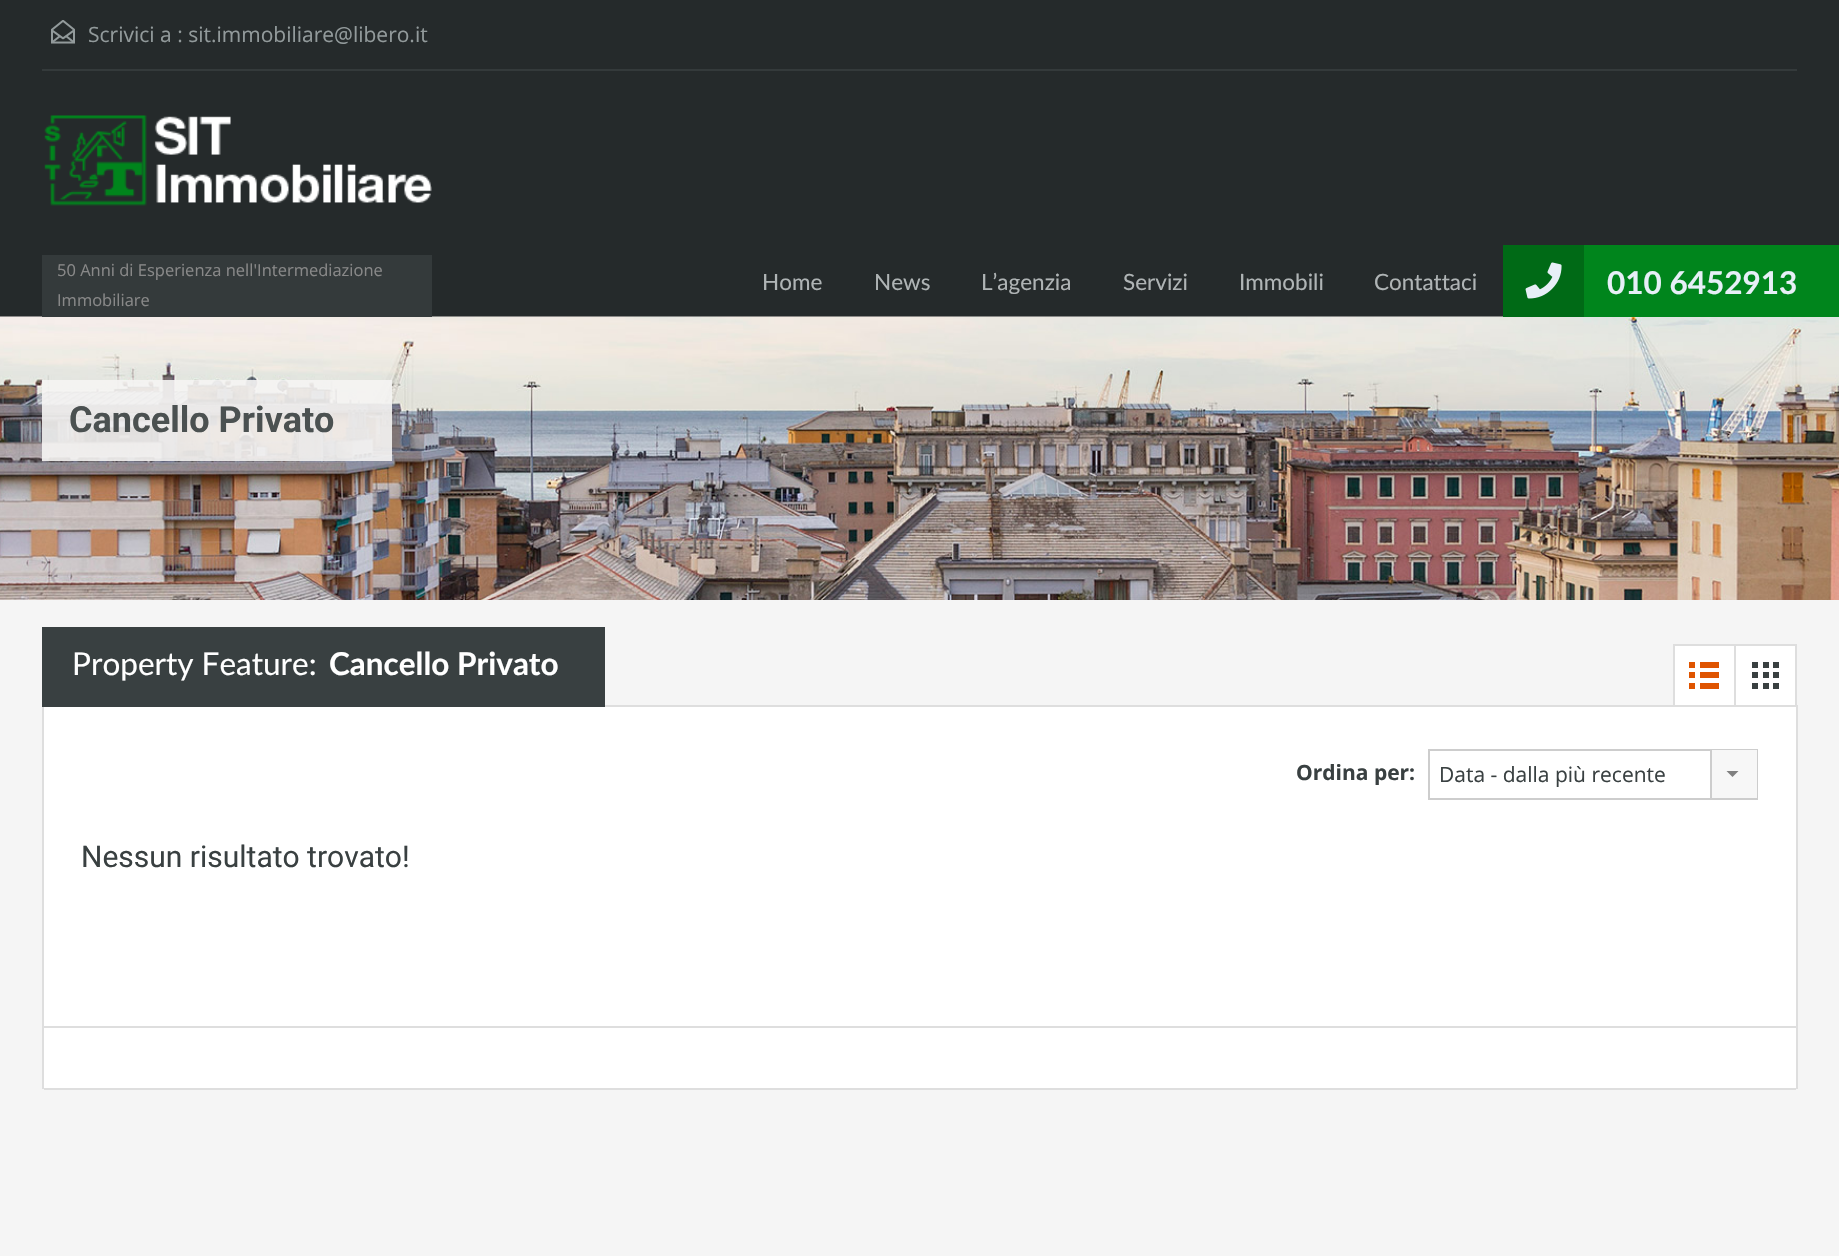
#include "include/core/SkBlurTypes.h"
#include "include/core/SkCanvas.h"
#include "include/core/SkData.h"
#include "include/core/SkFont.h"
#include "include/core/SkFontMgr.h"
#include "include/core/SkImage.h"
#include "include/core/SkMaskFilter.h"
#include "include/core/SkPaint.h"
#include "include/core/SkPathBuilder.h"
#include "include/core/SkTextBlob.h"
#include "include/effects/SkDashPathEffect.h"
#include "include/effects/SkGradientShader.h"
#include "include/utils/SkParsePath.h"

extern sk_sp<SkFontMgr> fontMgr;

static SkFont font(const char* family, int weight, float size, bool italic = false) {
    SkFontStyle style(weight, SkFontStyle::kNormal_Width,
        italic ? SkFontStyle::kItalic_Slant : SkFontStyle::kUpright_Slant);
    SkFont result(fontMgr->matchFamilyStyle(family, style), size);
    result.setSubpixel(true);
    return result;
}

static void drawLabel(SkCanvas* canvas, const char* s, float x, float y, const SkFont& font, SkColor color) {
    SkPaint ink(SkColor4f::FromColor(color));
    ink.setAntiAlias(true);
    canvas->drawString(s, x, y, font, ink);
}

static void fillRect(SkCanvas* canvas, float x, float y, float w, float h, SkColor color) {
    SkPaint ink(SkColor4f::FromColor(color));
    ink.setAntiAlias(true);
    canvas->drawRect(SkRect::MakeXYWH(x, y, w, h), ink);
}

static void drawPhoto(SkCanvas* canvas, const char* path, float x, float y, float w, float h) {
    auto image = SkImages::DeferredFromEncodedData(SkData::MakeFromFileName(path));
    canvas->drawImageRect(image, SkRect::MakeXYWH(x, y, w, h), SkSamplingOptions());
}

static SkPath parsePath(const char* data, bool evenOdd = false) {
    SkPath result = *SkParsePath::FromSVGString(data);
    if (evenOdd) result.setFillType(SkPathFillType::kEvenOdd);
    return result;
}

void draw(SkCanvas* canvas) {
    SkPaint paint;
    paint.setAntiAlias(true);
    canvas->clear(0xFFF5F5F5);
    fillRect(canvas, 0, 0, 1839, 317, 0xFF252A2B);
    fillRect(canvas, 42, 69, 1755, 2, 0xFF343A3B);
    drawPhoto(canvas, "assets/img1.png", 51, 20, 24, 24);
    SkFont font1 = font("Open Sans", 400, 21);
    drawLabel(canvas, "Scrivici a : sit.immobiliare@libero.it", 88, 42, font1, 0xFF929A9B);
    drawPhoto(canvas, "assets/img2.png", 44, 115, 388, 91);
    drawPhoto(canvas, "assets/img4.png", 0, 316, 1839, 284);
    fillRect(canvas, 42, 255, 390, 62, 0xFF343A3B);
    SkFont font2 = font("Open Sans", 400, 16.5f);
    drawLabel(canvas, "50 Anni di Esperienza nell'Intermediazione", 57, 276, font2, 0xFF888888);
    drawLabel(canvas, "Immobiliare", 57, 306, font2, 0xFF888888);
    SkFont font3 = font("Lato", 400, 22.5f);
    drawLabel(canvas, "Home", 762, 290, font3, 0xFFAFB4B5);
    drawLabel(canvas, "News", 874, 290, font3, 0xFFAFB4B5);
    drawLabel(canvas, "L’agenzia", 981, 290, font3, 0xFFAFB4B5);
    drawLabel(canvas, "Servizi", 1123, 290, font3, 0xFFAFB4B5);
    drawLabel(canvas, "Immobili", 1239, 290, font3, 0xFFAFB4B5);
    drawLabel(canvas, "Contattaci", 1374, 290, font3, 0xFFAFB4B5);
    fillRect(canvas, 1584, 245, 255, 72, 0xFF00851C);
    fillRect(canvas, 1503, 245, 81, 72, 0xFF006A16);
    drawPhoto(canvas, "assets/img3.png", 1525, 262, 37, 37);
    SkFont font4 = font("Lato", 700, 31.5f);
    drawLabel(canvas, "010 6452913", 1607, 294, font4, 0xFFE7EFF7);
    fillRect(canvas, 42, 380, 350, 81, 0xE6F5F4F3);
    SkFont font5 = font("Roboto", 700, 36);
    drawLabel(canvas, "Cancello Privato", 69, 432, font5, 0xFF4B5151);
    fillRect(canvas, 1796, 705, 2, 384, 0xFFDEDEDE);
    fillRect(canvas, 42, 705, 2, 384, 0xFFDEDEDE);
    fillRect(canvas, 44, 707, 1752, 381, 0xFFFFFFFF);
    fillRect(canvas, 605, 705, 1068, 2, 0xFFDEDEDE);
    fillRect(canvas, 44, 1088, 1752, 2, 0xFFDEDEDE);
    fillRect(canvas, 42, 627, 563, 80, 0xFF394041);
    SkFont font6 = font("Lato", 400, 31.5f);
    drawLabel(canvas, "Property Feature:", 72, 675, font6, 0xFFFFFFFF);
    drawLabel(canvas, "Cancello Privato", 329, 675, font4, 0xFFFFFFFF);
    paint.setColor(0xFFFFFFFF);
    canvas->drawRect(SkRect::MakeXYWH(1674, 645, 122, 61), paint);
    paint.setStroke(true);
    paint.setStrokeWidth(2);
    paint.setColor(0xFFDEDEDE);
    canvas->drawRect(SkRect::MakeXYWH(1674, 645, 122, 61), paint);
    fillRect(canvas, 1734, 645, 2, 60, 0xFFDEDEDE);
    fillRect(canvas, 1689, 662, 6, 6, 0xFFDF5400);
    fillRect(canvas, 1700, 662, 19, 6, 0xFFDF5400);
    fillRect(canvas, 1689, 672, 6, 6, 0xFFDF5400);
    fillRect(canvas, 1700, 672, 19, 6, 0xFFDF5400);
    fillRect(canvas, 1689, 683, 6, 6, 0xFFDF5400);
    fillRect(canvas, 1700, 683, 19, 6, 0xFFDF5400);
    drawPhoto(canvas, "assets/img5.png", 1752, 662, 27, 27);
    SkFont font7 = font("Open Sans", 700, 21);
    drawLabel(canvas, "Ordina per:", 1296, 780, font7, 0xFF394041);
    paint.setColor(0xFFCDCDCD);
    canvas->drawRect(SkRect::MakeXYWH(1429, 750, 328, 49), paint);
    drawLabel(canvas, "Data - dalla più recente", 1439, 782, font1, 0xFF394041);
    fillRect(canvas, 1712, 750, 45, 48, 0xFFF7F7F7);
    fillRect(canvas, 1710, 750, 2, 48, 0xFFCDCDCD);
    paint.setStroke(false);
    paint.setColor(0xFF808080);
    canvas->drawPath(parsePath("M1726.5 771H1738.5L1732.5 777Z"), paint);
    SkFont font8 = font("Roboto", 400, 30);
    drawLabel(canvas, "Nessun risultato trovato!", 81, 867, font8, 0xFF394041);
    fillRect(canvas, 44, 1026, 1752, 2, 0xFFDEDEDE);
}
